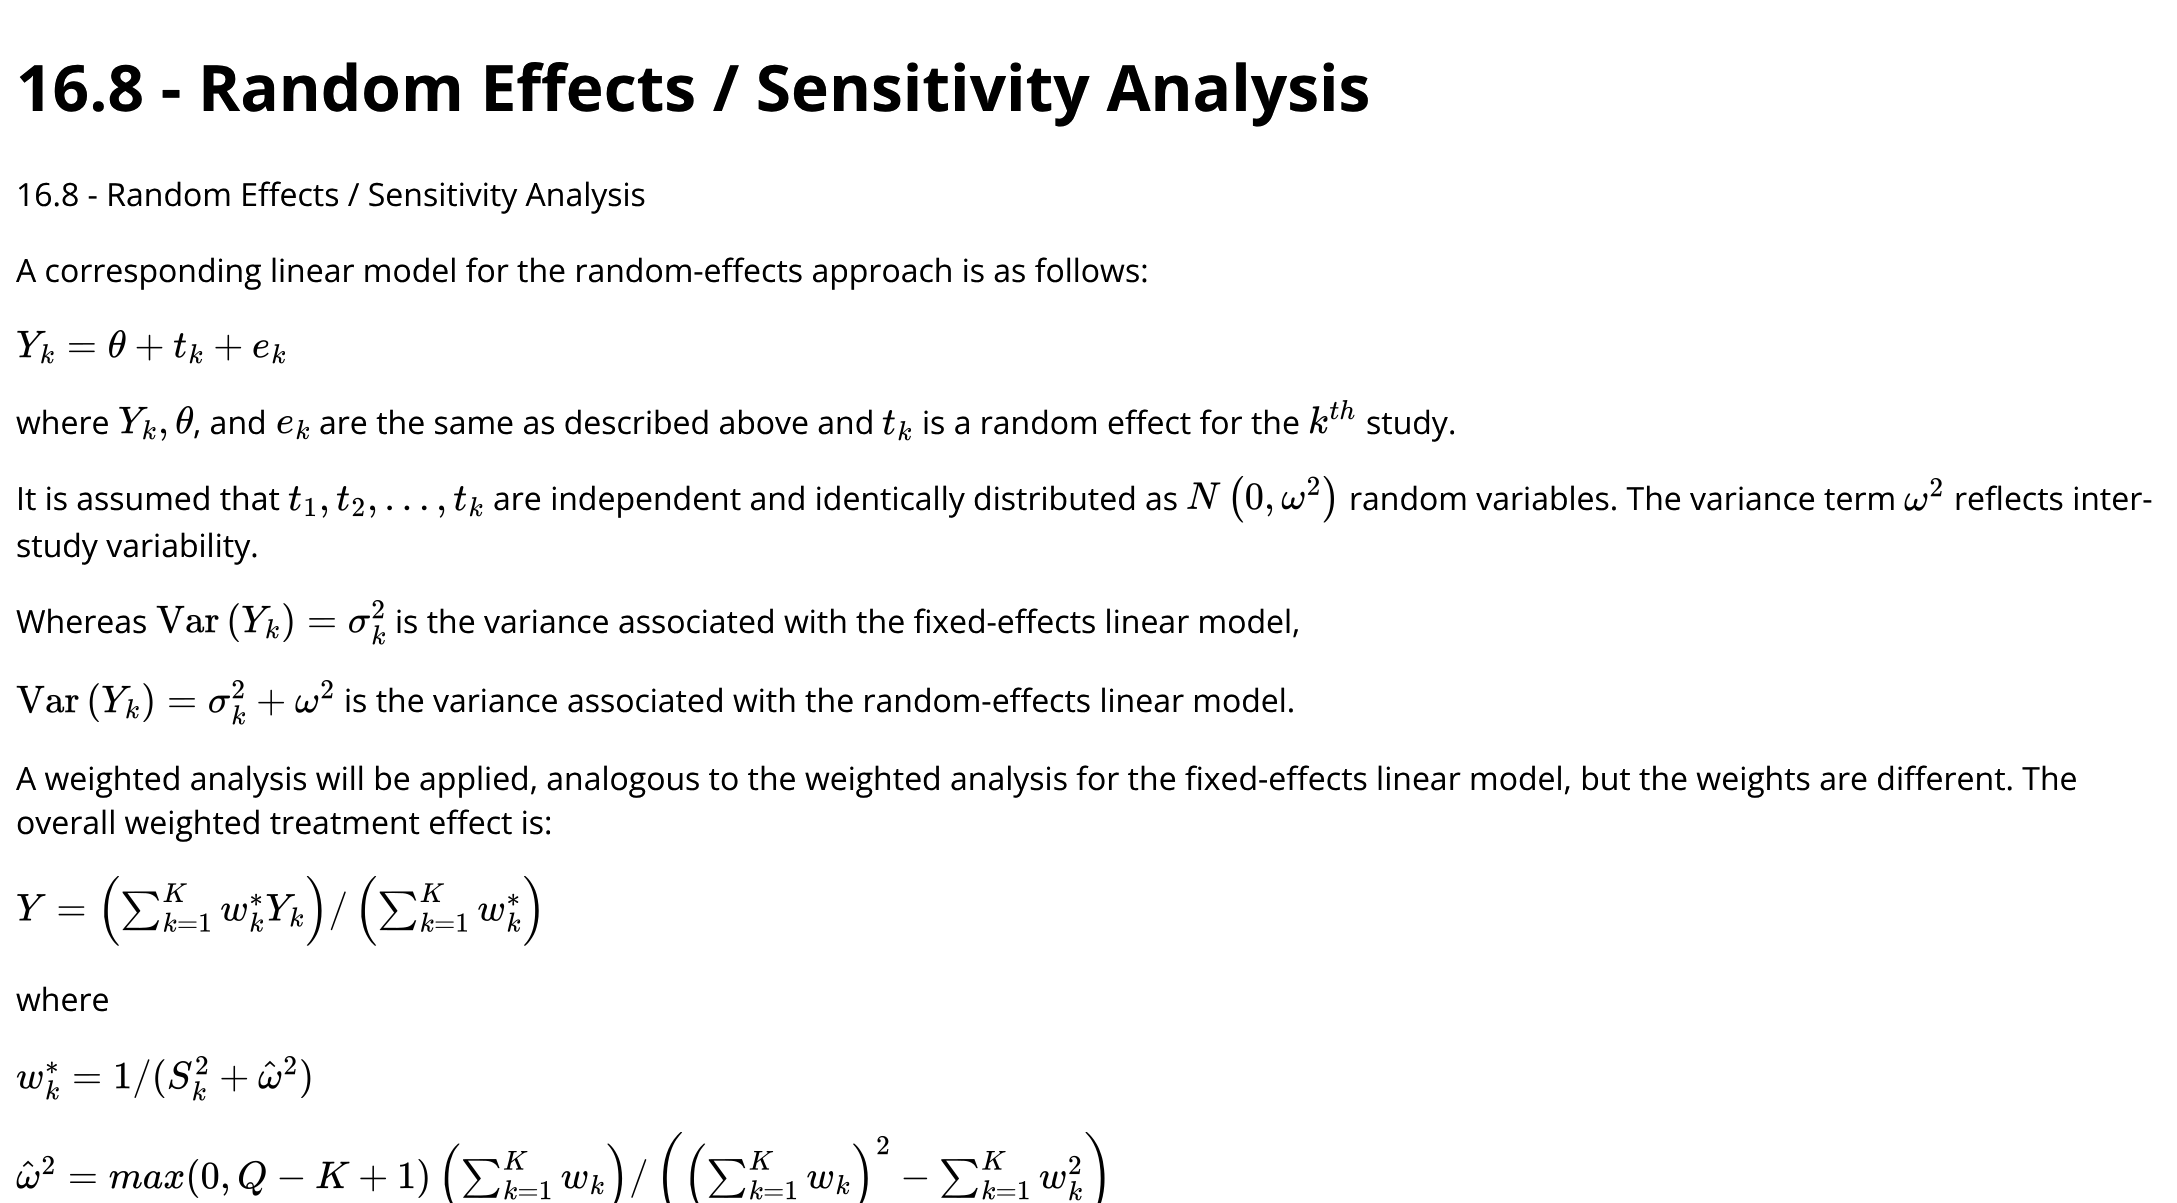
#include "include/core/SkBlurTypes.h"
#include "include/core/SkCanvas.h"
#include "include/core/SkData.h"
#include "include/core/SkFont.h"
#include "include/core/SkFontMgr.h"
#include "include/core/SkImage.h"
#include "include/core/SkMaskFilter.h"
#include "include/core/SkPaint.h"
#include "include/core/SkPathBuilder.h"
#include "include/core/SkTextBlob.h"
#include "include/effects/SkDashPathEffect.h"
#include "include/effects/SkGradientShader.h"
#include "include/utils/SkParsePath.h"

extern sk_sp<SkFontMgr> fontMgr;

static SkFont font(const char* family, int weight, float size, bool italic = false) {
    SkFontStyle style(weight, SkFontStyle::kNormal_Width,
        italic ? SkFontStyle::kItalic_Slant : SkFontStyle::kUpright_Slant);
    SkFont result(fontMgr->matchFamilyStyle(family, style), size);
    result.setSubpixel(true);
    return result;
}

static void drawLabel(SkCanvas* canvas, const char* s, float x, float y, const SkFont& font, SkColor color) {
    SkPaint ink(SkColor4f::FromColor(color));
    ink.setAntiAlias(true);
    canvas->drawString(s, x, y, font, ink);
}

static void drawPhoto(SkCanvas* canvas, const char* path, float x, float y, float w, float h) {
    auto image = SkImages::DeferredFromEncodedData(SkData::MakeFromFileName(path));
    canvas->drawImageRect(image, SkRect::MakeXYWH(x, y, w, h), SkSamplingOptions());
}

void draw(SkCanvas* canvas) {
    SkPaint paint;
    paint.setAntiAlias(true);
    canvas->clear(0xFFFFFFFF);
    SkFont font1 = font("Open Sans", 700, 64);
    drawLabel(canvas, "16.8 - Random Effects / Sensitivity Analysis", 16, 111, font1, 0xFF000000);
    SkFont font2 = font("Open Sans", 400, 32);
    drawLabel(canvas, "16.8 - Random Effects / Sensitivity Analysis", 16, 206, font2, 0xFF000000);
    drawLabel(canvas, "A corresponding linear model for the random-effects approach is as follows:", 16, 282, font2, 0xFF000000);
    drawPhoto(canvas, "assets/img1.png", 17, 330, 268, 34);
    drawLabel(canvas, "where", 16, 434, font2, 0xFF000000);
    drawPhoto(canvas, "assets/img2.png", 119, 406, 75, 35);
    drawLabel(canvas, ", and", 193, 434, font2, 0xFF000000);
    drawPhoto(canvas, "assets/img3.png", 277, 416, 33, 24);
    drawLabel(canvas, "are the same as described above and", 319, 434, font2, 0xFF000000);
    drawPhoto(canvas, "assets/img4.png", 882, 410, 29, 31);
    drawLabel(canvas, "is a random effect for the", 922, 434, font2, 0xFF000000);
    drawPhoto(canvas, "assets/img5.png", 1309, 400, 46, 34);
    drawLabel(canvas, "study.", 1366, 434, font2, 0xFF000000);
    drawLabel(canvas, "It is assumed that", 16, 510, font2, 0xFF000000);
    drawPhoto(canvas, "assets/img6.png", 288, 486, 195, 32);
    drawLabel(canvas, "are independent and identically distributed as", 493, 510, font2, 0xFF000000);
    drawPhoto(canvas, "assets/img7.png", 1187, 476, 147, 47);
    drawLabel(canvas, "random variables. The variance term", 1349, 510, font2, 0xFF000000);
    drawPhoto(canvas, "assets/img8.png", 1904, 478, 38, 33);
    drawLabel(canvas, "reflects inter-", 1954, 510, font2, 0xFF000000);
    drawLabel(canvas, "study variability.", 16, 557, font2, 0xFF000000);
    drawLabel(canvas, "Whereas", 16, 633, font2, 0xFF000000);
    drawPhoto(canvas, "assets/img9.png", 156, 600, 229, 45);
    drawLabel(canvas, "is the variance associated with the fixed-effects linear model,", 395, 633, font2, 0xFF000000);
    drawPhoto(canvas, "assets/img10.png", 16, 680, 317, 45);
    drawLabel(canvas, "is the variance associated with the random-effects linear model.", 344, 712, font2, 0xFF000000);
    drawLabel(canvas, "A weighted analysis will be applied, analogous to the weighted analysis for the fixed-effects linear model, but the weights are different. The", 16, 790, font2, 0xFF000000);
    drawLabel(canvas, "overall weighted treatment effect is:", 16, 834, font2, 0xFF000000);
    drawPhoto(canvas, "assets/img11.png", 17, 876, 522, 70);
    drawLabel(canvas, "where", 16, 1011, font2, 0xFF000000);
    drawPhoto(canvas, "assets/img12.png", 16, 1056, 295, 45);
    drawPhoto(canvas, "assets/img13.png", 16, 1132, 1089, 71);
}
